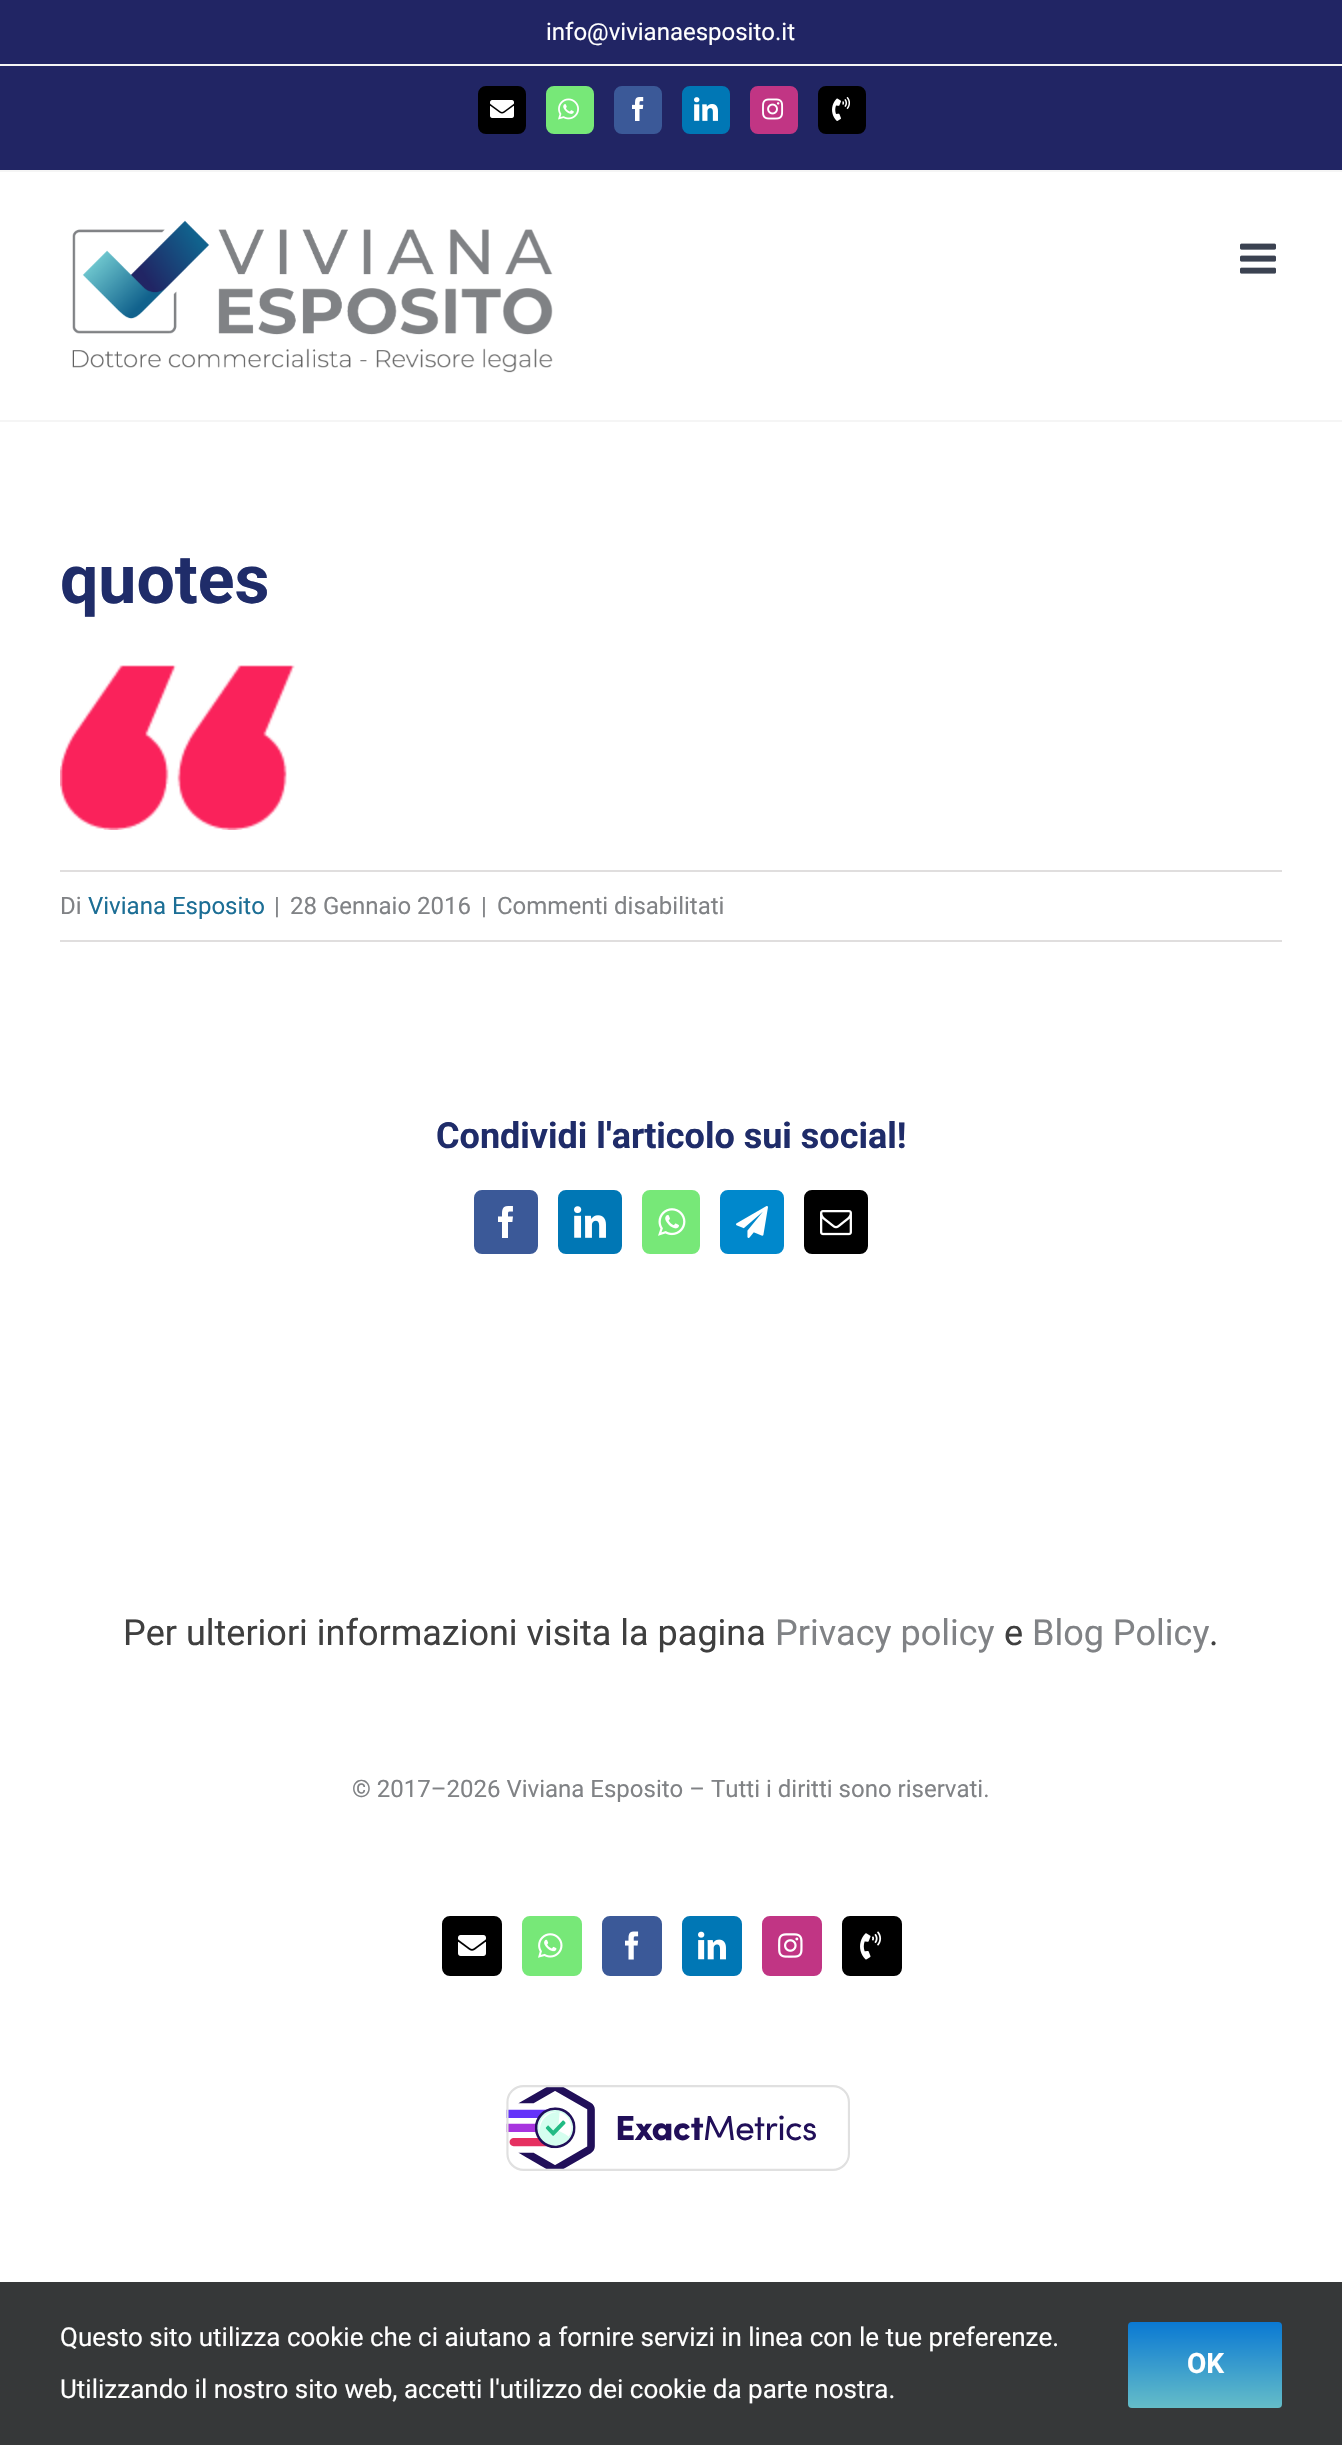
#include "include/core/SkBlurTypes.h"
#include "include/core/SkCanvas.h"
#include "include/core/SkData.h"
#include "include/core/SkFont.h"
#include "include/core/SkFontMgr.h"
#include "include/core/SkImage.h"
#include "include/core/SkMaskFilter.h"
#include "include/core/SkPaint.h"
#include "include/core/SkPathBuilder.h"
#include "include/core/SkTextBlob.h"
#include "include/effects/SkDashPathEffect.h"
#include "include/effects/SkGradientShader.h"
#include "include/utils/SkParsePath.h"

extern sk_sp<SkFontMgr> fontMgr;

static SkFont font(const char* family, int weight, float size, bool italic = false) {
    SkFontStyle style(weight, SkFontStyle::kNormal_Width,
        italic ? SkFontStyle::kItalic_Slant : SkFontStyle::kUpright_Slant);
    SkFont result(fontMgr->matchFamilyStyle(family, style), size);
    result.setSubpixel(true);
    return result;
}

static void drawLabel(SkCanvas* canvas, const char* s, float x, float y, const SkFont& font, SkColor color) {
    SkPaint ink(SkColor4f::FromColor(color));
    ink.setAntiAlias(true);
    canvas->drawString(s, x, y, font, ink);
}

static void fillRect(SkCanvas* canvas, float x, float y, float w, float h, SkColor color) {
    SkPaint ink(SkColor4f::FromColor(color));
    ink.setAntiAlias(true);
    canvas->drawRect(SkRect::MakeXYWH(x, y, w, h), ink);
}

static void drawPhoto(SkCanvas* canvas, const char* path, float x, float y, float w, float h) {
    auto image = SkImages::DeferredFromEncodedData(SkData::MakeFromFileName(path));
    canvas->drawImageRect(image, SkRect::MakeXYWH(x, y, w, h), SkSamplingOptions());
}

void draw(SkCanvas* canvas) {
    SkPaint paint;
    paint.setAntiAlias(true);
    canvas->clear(0xFFFFFFFF);
    fillRect(canvas, 0, 0, 1342, 170, 0xFF212564);
    fillRect(canvas, 0, 170, 1342, 2, 0xFFF5F5F5);
    fillRect(canvas, 0, 64, 1342, 2, 0xFFF5F5F5);
    SkFont font1 = font("Roboto", 400, 24);
    drawLabel(canvas, "info@vivianaesposito.it", 546, 40, font1, 0xFFFFFFFF);
    paint.setColor(0xFF000000);
    canvas->drawRoundRect(SkRect::MakeXYWH(479, 87, 46, 46), 7, 7, paint);
    paint.setStroke(true);
    paint.setStrokeWidth(2);
    canvas->drawRoundRect(SkRect::MakeXYWH(479, 87, 46, 46), 7, 7, paint);
    drawPhoto(canvas, "assets/img1.png", 490, 100, 24, 18);
    paint.setStroke(false);
    paint.setColor(0xFF77E878);
    canvas->drawRoundRect(SkRect::MakeXYWH(547, 87, 46, 46), 7, 7, paint);
    paint.setStroke(true);
    canvas->drawRoundRect(SkRect::MakeXYWH(547, 87, 46, 46), 7, 7, paint);
    drawPhoto(canvas, "assets/img2.png", 558, 98, 21, 22);
    paint.setStroke(false);
    paint.setColor(0xFF3B5998);
    canvas->drawRoundRect(SkRect::MakeXYWH(615, 87, 46, 46), 7, 7, paint);
    paint.setStroke(true);
    canvas->drawRoundRect(SkRect::MakeXYWH(615, 87, 46, 46), 7, 7, paint);
    drawPhoto(canvas, "assets/img3.png", 632, 97, 12, 24);
    paint.setStroke(false);
    paint.setColor(0xFF0077B5);
    canvas->drawRoundRect(SkRect::MakeXYWH(683, 87, 46, 46), 7, 7, paint);
    paint.setStroke(true);
    canvas->drawRoundRect(SkRect::MakeXYWH(683, 87, 46, 46), 7, 7, paint);
    drawPhoto(canvas, "assets/img4.png", 694, 97, 24, 24);
    paint.setStroke(false);
    paint.setColor(0xFFC13584);
    canvas->drawRoundRect(SkRect::MakeXYWH(751, 87, 46, 46), 7, 7, paint);
    paint.setStroke(true);
    canvas->drawRoundRect(SkRect::MakeXYWH(751, 87, 46, 46), 7, 7, paint);
    drawPhoto(canvas, "assets/img5.png", 762, 98, 22, 22);
    paint.setStroke(false);
    paint.setColor(0xFF000000);
    canvas->drawRoundRect(SkRect::MakeXYWH(819, 87, 46, 46), 7, 7, paint);
    paint.setStroke(true);
    canvas->drawRoundRect(SkRect::MakeXYWH(819, 87, 46, 46), 7, 7, paint);
    drawPhoto(canvas, "assets/img6.png", 832, 97, 18, 24);
    fillRect(canvas, 0, 420, 1342, 2, 0xFFF5F5F5);
    drawPhoto(canvas, "assets/img7.png", 72, 220, 481, 153);
    drawPhoto(canvas, "assets/img8.png", 1240, 243, 36, 31);
    SkFont font2 = font("Roboto", 700, 68);
    drawLabel(canvas, "quotes", 60, 603, font2, 0xFF1F2C69);
    drawPhoto(canvas, "assets/img9.png", 60, 665, 235, 165);
    fillRect(canvas, 60, 870, 1222, 2, 0xFFE0DEDE);
    fillRect(canvas, 60, 940, 1222, 2, 0xFFE0DEDE);
    drawLabel(canvas, "Di", 60, 914, font1, 0xFF808285);
    drawLabel(canvas, "Viviana Esposito", 88, 914, font1, 0xFF1C6E95);
    drawLabel(canvas, "|", 274, 914, font1, 0xFF808285);
    drawLabel(canvas, "28 Gennaio 2016", 290, 914, font1, 0xFF808285);
    drawLabel(canvas, "|", 481, 914, font1, 0xFF808285);
    drawLabel(canvas, "Commenti disabilitati", 497, 914, font1, 0xFF808285);
    SkFont font3 = font("Roboto", 700, 36);
    drawLabel(canvas, "Condividi l'articolo sui social!", 436, 1148, font3, 0xFF1F2C69);
    paint.setStroke(false);
    paint.setColor(0xFF3B5998);
    canvas->drawRoundRect(SkRect::MakeXYWH(475, 1191, 62, 62), 7, 7, paint);
    paint.setStroke(true);
    canvas->drawRoundRect(SkRect::MakeXYWH(475, 1191, 62, 62), 7, 7, paint);
    drawPhoto(canvas, "assets/img10.png", 498, 1206, 15, 32);
    paint.setStroke(false);
    paint.setColor(0xFF0077B5);
    canvas->drawRoundRect(SkRect::MakeXYWH(559, 1191, 62, 62), 7, 7, paint);
    paint.setStroke(true);
    canvas->drawRoundRect(SkRect::MakeXYWH(559, 1191, 62, 62), 7, 7, paint);
    drawPhoto(canvas, "assets/img11.png", 574, 1206, 32, 32);
    paint.setStroke(false);
    paint.setColor(0xFF77E878);
    canvas->drawRoundRect(SkRect::MakeXYWH(643, 1191, 56, 62), 7, 7, paint);
    paint.setStroke(true);
    canvas->drawRoundRect(SkRect::MakeXYWH(643, 1191, 56, 62), 7, 7, paint);
    drawPhoto(canvas, "assets/img12.png", 658, 1208, 28, 28);
    paint.setStroke(false);
    paint.setColor(0xFF0088CC);
    canvas->drawRoundRect(SkRect::MakeXYWH(721, 1191, 62, 62), 7, 7, paint);
    paint.setStroke(true);
    canvas->drawRoundRect(SkRect::MakeXYWH(721, 1191, 62, 62), 7, 7, paint);
    drawPhoto(canvas, "assets/img13.png", 736, 1206, 32, 32);
    paint.setStroke(false);
    paint.setColor(0xFF000000);
    canvas->drawRoundRect(SkRect::MakeXYWH(805, 1191, 62, 62), 7, 7, paint);
    paint.setStroke(true);
    canvas->drawRoundRect(SkRect::MakeXYWH(805, 1191, 62, 62), 7, 7, paint);
    drawPhoto(canvas, "assets/img14.png", 820, 1210, 32, 26);
    SkFont font4 = font("Roboto", 400, 36);
    drawLabel(canvas, "Per ulteriori informazioni visita la pagina", 123, 1645, font4, 0xFF3F3F3F);
    drawLabel(canvas, "Privacy policy", 775, 1645, font4, 0xFF808285);
    drawLabel(canvas, "e", 1004, 1645, font4, 0xFF3F3F3F);
    drawLabel(canvas, "Blog Policy", 1032, 1645, font4, 0xFF808285);
    drawLabel(canvas, ".", 1209, 1645, font4, 0xFF3F3F3F);
    drawLabel(canvas, "© 2017–2026 Viviana Esposito – Tutti i diritti sono riservati.", 352, 1797, font1, 0xFF808285);
    paint.setStroke(false);
    canvas->drawRoundRect(SkRect::MakeXYWH(443, 1917, 58, 58), 7, 7, paint);
    paint.setStroke(true);
    canvas->drawRoundRect(SkRect::MakeXYWH(443, 1917, 58, 58), 7, 7, paint);
    drawPhoto(canvas, "assets/img15.png", 458, 1935, 28, 21);
    paint.setStroke(false);
    paint.setColor(0xFF77E878);
    canvas->drawRoundRect(SkRect::MakeXYWH(523, 1917, 58, 58), 7, 7, paint);
    paint.setStroke(true);
    canvas->drawRoundRect(SkRect::MakeXYWH(523, 1917, 58, 58), 7, 7, paint);
    drawPhoto(canvas, "assets/img16.png", 538, 1933, 25, 25);
    paint.setStroke(false);
    paint.setColor(0xFF3B5998);
    canvas->drawRoundRect(SkRect::MakeXYWH(603, 1917, 58, 58), 7, 7, paint);
    paint.setStroke(true);
    canvas->drawRoundRect(SkRect::MakeXYWH(603, 1917, 58, 58), 7, 7, paint);
    drawPhoto(canvas, "assets/img17.png", 625, 1931, 14, 29);
    paint.setStroke(false);
    paint.setColor(0xFF0077B5);
    canvas->drawRoundRect(SkRect::MakeXYWH(683, 1917, 58, 58), 7, 7, paint);
    paint.setStroke(true);
    canvas->drawRoundRect(SkRect::MakeXYWH(683, 1917, 58, 58), 7, 7, paint);
    drawPhoto(canvas, "assets/img18.png", 698, 1931, 28, 29);
    paint.setStroke(false);
    paint.setColor(0xFFC13584);
    canvas->drawRoundRect(SkRect::MakeXYWH(763, 1917, 58, 58), 7, 7, paint);
    paint.setStroke(true);
    canvas->drawRoundRect(SkRect::MakeXYWH(763, 1917, 58, 58), 7, 7, paint);
    drawPhoto(canvas, "assets/img19.png", 778, 1933, 25, 25);
    paint.setStroke(false);
    paint.setColor(0xFF000000);
    canvas->drawRoundRect(SkRect::MakeXYWH(843, 1917, 58, 58), 7, 7, paint);
    paint.setStroke(true);
    canvas->drawRoundRect(SkRect::MakeXYWH(843, 1917, 58, 58), 7, 7, paint);
    drawPhoto(canvas, "assets/img20.png", 860, 1931, 22, 29);
    drawPhoto(canvas, "assets/img21.png", 506, 2085, 344, 86);
    fillRect(canvas, 0, 2282, 1342, 163, 0xFF363839);
    SkFont font5 = font("Roboto", 400, 26);
    drawLabel(canvas, "Questo sito utilizza cookie che ci aiutano a fornire servizi in linea con le tue preferenze.", 60, 2346, font5, 0xFFFFFFFF);
    drawLabel(canvas, "Utilizzando il nostro sito web, accetti l'utilizzo dei cookie da parte nostra.", 60, 2398, font5, 0xFFFFFFFF);
    paint.setStroke(false);
    {
        const SkColor colors[] = {0xFF0A79D3, 0xFF65BDC8};
        const float stops[] = {0, 1};
        const SkPoint ends[] = {{1205, 2322}, {1205, 2408}};
        paint.setShader(SkGradientShader::MakeLinear(ends, colors, stops, 2, SkTileMode::kClamp));
        paint.setAlpha(255);
    }
    canvas->drawRoundRect(SkRect::MakeXYWH(1128, 2322, 154, 86), 4, 4, paint);
    SkFont font6 = font("Roboto", 700, 28);
    drawLabel(canvas, "OK", 1187, 2373, font6, 0xFFFFFFFF);
}
